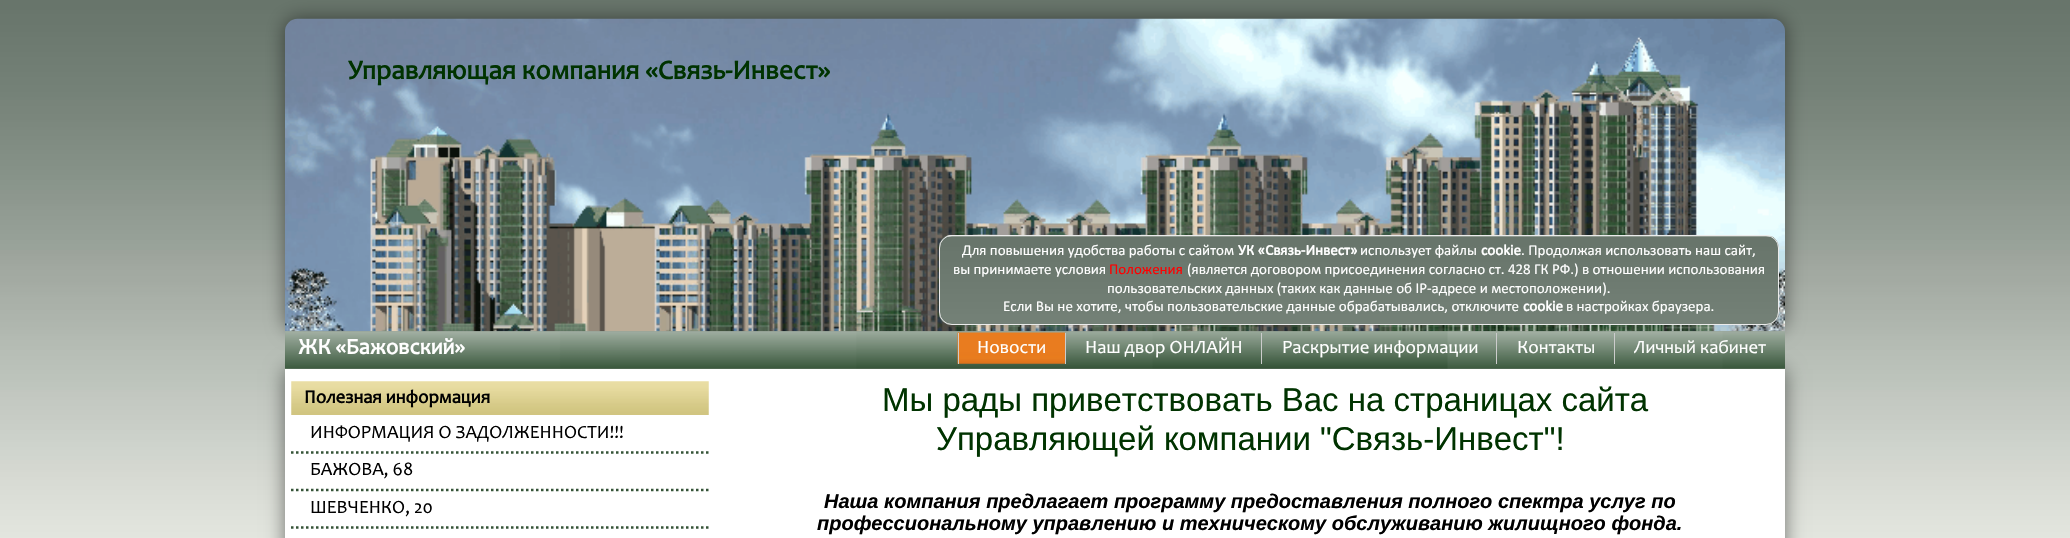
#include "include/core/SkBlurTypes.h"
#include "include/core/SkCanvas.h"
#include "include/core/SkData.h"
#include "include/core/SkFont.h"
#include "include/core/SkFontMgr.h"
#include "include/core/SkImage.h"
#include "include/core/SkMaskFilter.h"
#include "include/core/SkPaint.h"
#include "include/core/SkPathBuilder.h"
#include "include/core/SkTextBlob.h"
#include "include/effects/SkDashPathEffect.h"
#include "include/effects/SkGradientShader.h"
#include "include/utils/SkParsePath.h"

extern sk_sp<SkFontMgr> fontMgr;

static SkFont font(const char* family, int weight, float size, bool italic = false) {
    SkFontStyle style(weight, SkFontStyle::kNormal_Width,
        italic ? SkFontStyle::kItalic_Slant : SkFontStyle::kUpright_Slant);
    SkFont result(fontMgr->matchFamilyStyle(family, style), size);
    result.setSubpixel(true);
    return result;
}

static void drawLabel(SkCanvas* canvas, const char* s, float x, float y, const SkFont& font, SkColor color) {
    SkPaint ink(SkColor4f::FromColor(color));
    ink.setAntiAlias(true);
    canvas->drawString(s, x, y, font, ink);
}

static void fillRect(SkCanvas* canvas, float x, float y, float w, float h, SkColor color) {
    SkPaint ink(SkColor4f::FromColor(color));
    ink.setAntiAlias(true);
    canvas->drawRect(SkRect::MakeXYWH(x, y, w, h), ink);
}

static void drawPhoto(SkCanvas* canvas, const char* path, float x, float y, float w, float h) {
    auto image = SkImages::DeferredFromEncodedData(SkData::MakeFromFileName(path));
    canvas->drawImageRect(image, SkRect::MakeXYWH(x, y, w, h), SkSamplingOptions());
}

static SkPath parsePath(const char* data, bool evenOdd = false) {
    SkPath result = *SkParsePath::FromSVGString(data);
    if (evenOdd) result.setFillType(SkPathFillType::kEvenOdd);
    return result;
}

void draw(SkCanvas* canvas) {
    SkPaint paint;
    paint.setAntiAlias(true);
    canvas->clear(0xFFFFFFFF);
    drawPhoto(canvas, "assets/img1.png", 0, 0, 2070, 538);
    paint.setColor(0x80000000);
    paint.setMaskFilter(SkMaskFilter::MakeBlur(kNormal_SkBlurStyle, 9.5f));
    canvas->drawRoundRect(SkRect::MakeXYWH(285, 19, 1500, 312), 13, 13, paint);
    paint.setMaskFilter(nullptr);
    drawPhoto(canvas, "assets/img2.png", 285, 18, 1500, 314);
    SkFont font1 = font("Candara", 700, 27.5f);
    drawLabel(canvas, "Управляющая компания «Связь-Инвест»", 348, 79, font1, 0xFF003300);
    drawPhoto(canvas, "assets/img3.png", 938, 235, 841, 90);
    paint.setStroke(true);
    paint.setStrokeWidth(1);
    paint.setColor(0xFFEBEBEB);
    canvas->drawRoundRect(SkRect::MakeXYWH(939.5f, 235.5f, 839, 89), 12.5f, 12.5f, paint);
    SkFont font2 = font("Calibri", 400, 15);
    drawLabel(canvas, "Для повышения удобства работы с сайтом", 962, 255, font2, 0xFFFFFFFF);
    SkFont font3 = font("Calibri", 700, 15);
    drawLabel(canvas, "УК «Связь-Инвест»", 1238, 255, font3, 0xFFFFFFFF);
    drawLabel(canvas, "использует файлы", 1360, 255, font2, 0xFFFFFFFF);
    drawLabel(canvas, "cookie", 1481, 255, font3, 0xFFFFFFFF);
    drawLabel(canvas, ". Продолжая использовать наш сайт,", 1521, 255, font2, 0xFFFFFFFF);
    drawLabel(canvas, "вы принимаете условия", 953, 274, font2, 0xFFFFFFFF);
    drawLabel(canvas, "Положения", 1109, 274, font2, 0xFFFF0000);
    drawLabel(canvas, "(является договором присоединения согласно ст. 428 ГК РФ.) в отношении использования", 1187, 274, font2, 0xFFFFFFFF);
    drawLabel(canvas, "пользовательских данных (таких как данные об IP-адресе и местоположении).", 1107, 293, font2, 0xFFFFFFFF);
    drawLabel(canvas, "Если Вы не хотите, чтобы пользовательские данные обрабатывались, отключите", 1003, 311, font2, 0xFFFFFFFF);
    drawLabel(canvas, "cookie", 1523, 311, font3, 0xFFFFFFFF);
    drawLabel(canvas, "в настройках браузера.", 1566, 311, font2, 0xFFFFFFFF);
    paint.setStroke(false);
    paint.setColor(0x80000000);
    paint.setMaskFilter(SkMaskFilter::MakeBlur(kNormal_SkBlurStyle, 9.5f));
    canvas->drawRect(SkRect::MakeXYWH(285, 369, 1500, 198), paint);
    paint.setMaskFilter(nullptr);
    drawPhoto(canvas, "assets/img4.png", 285, 331, 1500, 38);
    SkFont font4 = font("Candara", 700, 22.5f);
    drawLabel(canvas, "ЖК «Бажовский»", 298, 354, font4, 0xFFFFFFFF);
    drawPhoto(canvas, "assets/img5.png", 957, 332, 108, 32);
    SkFont font5 = font("Candara", 400, 18.75f);
    drawLabel(canvas, "Наш двор ОНЛАЙН", 1085, 353, font5, 0xFFFFFFFF);
    fillRect(canvas, 1065, 333, 1, 31, 0xFFCCCCCC);
    drawLabel(canvas, "Раскрытие информации", 1282, 353, font5, 0xFFFFFFFF);
    fillRect(canvas, 1261, 333, 1, 31, 0xFFCCCCCC);
    drawLabel(canvas, "Личный кабинет", 1634, 353, font5, 0xFFFFFFFF);
    fillRect(canvas, 1614, 333, 1, 31, 0xFFCCCCCC);
    drawLabel(canvas, "Новости", 977, 353, font5, 0xFFFFFFFF);
    fillRect(canvas, 958, 333, 1, 31, 0xFFCCCCCC);
    drawLabel(canvas, "Контакты", 1517, 353, font5, 0xFFFFFFFF);
    fillRect(canvas, 1496, 333, 1, 31, 0xFFCCCCCC);
    fillRect(canvas, 285, 369, 1500, 169, 0xFFFFFFFF);
    drawPhoto(canvas, "assets/img6.png", 291, 381, 418, 34);
    SkFont font6 = font("Candara", 700, 18.75f);
    drawLabel(canvas, "Полезная информация", 304, 403, font6, 0xFF000000);
    paint.setStroke(true);
    paint.setStrokeWidth(2.5f);
    paint.setColor(0xFF355437);
    paint.setPathEffect(SkDashPathEffect::Make({{2.5f, 2.5f}}, 0));
    canvas->drawPath(parsePath("M291 452.5H709"), paint);
    paint.setPathEffect(nullptr);
    drawLabel(canvas, "ИНФОРМАЦИЯ О ЗАДОЛЖЕННОСТИ!!!", 310, 438, font5, 0xFF000000);
    paint.setPathEffect(SkDashPathEffect::Make({{2.5f, 2.5f}}, 0));
    canvas->drawPath(parsePath("M291 490H709"), paint);
    paint.setPathEffect(nullptr);
    drawLabel(canvas, "БАЖОВА, 68", 310, 475, font5, 0xFF000000);
    paint.setPathEffect(SkDashPathEffect::Make({{2.5f, 2.5f}}, 0));
    canvas->drawPath(parsePath("M291 527.5H709"), paint);
    paint.setPathEffect(nullptr);
    drawLabel(canvas, "ШЕВЧЕНКО, 20", 310, 513, font5, 0xFF000000);
    SkFont font7 = font("Liberation Sans", 400, 33);
    drawLabel(canvas, "Мы рады приветствовать Вас на страницах сайта", 882, 411, font7, 0xFF003300);
    drawLabel(canvas, "Управляющей компании \"Связь-Инвест\"!", 936, 450, font7, 0xFF003300);
    SkFont font8 = font("Liberation Sans", 700, 20, true);
    drawLabel(canvas, "Наша компания предлагает программу предоставления полного спектра услуг по", 824, 508, font8, 0xFF000000);
    drawLabel(canvas, "профессиональному управлению и техническому обслуживанию жилищного фонда.", 817, 530, font8, 0xFF000000);
}
